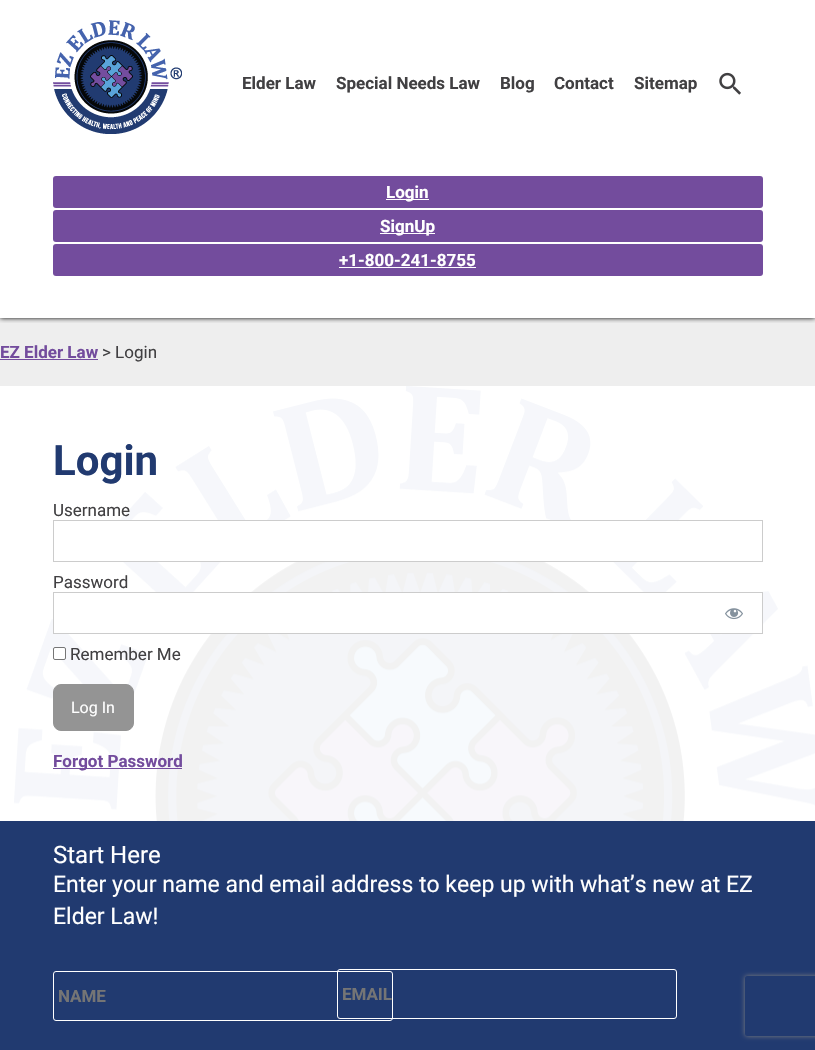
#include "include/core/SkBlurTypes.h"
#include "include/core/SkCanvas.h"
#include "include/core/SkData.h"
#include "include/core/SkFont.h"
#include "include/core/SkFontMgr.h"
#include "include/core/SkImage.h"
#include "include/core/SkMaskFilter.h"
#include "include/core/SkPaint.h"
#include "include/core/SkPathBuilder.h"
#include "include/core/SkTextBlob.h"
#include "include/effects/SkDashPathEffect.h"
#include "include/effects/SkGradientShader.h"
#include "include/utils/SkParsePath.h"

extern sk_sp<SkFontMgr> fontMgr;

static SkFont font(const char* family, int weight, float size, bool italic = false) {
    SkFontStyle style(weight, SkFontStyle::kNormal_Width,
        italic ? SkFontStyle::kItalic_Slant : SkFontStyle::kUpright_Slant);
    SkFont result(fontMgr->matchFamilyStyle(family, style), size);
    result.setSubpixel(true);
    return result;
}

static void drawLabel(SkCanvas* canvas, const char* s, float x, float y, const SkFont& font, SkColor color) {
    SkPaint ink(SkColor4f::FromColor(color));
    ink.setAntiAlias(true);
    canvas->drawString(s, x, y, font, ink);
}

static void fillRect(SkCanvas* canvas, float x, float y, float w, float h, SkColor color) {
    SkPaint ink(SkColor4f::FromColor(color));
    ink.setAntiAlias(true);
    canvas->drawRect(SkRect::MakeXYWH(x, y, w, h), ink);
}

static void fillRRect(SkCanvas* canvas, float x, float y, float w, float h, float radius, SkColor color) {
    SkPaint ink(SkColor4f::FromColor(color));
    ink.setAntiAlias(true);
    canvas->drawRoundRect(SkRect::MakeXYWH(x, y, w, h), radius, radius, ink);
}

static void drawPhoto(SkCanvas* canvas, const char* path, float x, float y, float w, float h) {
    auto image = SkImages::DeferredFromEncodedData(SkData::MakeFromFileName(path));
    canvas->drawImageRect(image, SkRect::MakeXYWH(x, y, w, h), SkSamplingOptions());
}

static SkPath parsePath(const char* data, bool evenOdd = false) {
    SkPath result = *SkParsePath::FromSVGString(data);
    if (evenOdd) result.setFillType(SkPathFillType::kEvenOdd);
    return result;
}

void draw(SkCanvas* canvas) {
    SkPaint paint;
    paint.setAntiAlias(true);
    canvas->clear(0xFFFFFFFF);
    fillRect(canvas, 0, 318, 815, 68, 0xFFEEEEEE);
    canvas->save();
    canvas->clipRect(SkRect::MakeXYWH(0, 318, 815, 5));
    paint.setColor(0xFF000000);
    paint.setMaskFilter(SkMaskFilter::MakeBlur(kNormal_SkBlurStyle, 2.5f));
    canvas->drawRect(SkRect::MakeXYWH(0, 0, 815, 318), paint);
    paint.setMaskFilter(nullptr);
    canvas->restore();
    drawPhoto(canvas, "assets/img1.png", 53, 20, 129, 114);
    SkFont font1 = font("Roboto", 700, 17);
    drawLabel(canvas, "Elder Law", 242, 89, font1, 0xFF414042);
    drawLabel(canvas, "Special Needs Law", 336, 89, font1, 0xFF414042);
    drawLabel(canvas, "Blog", 500, 89, font1, 0xFF414042);
    drawLabel(canvas, "Contact", 554, 89, font1, 0xFF414042);
    drawLabel(canvas, "Sitemap", 634, 89, font1, 0xFF414042);
    drawPhoto(canvas, "assets/img2.png", 719, 72, 22, 23);
    fillRRect(canvas, 53, 176, 710, 32, 3, 0xFF734C9D);
    fillRect(canvas, 386, 199, 43, 1, 0xFFFFFFFF);
    drawLabel(canvas, "Login", 386, 198, font1, 0xFFFFFFFF);
    fillRRect(canvas, 53, 210, 710, 32, 3, 0xFF734C9D);
    fillRect(canvas, 380, 233, 55, 1, 0xFFFFFFFF);
    drawLabel(canvas, "SignUp", 380, 232, font1, 0xFFFFFFFF);
    fillRRect(canvas, 53, 244, 710, 32, 3, 0xFF734C9D);
    drawLabel(canvas, "+1-800-241-8755", 339, 266, font1, 0xFFFFFFFF);
    fillRect(canvas, 339, 267, 137, 1, 0xFFFFFFFF);
    drawLabel(canvas, "EZ Elder Law", 0, 358, font1, 0xFF734C9D);
    fillRect(canvas, 0, 359, 98, 1, 0xFF734C9D);
    SkFont font2 = font("Roboto", 400, 17);
    drawLabel(canvas, "> Login", 102, 358, font2, 0xFF414042);
    drawPhoto(canvas, "assets/img3.png", 14, 386, 801, 435);
    SkFont font3 = font("Roboto", 700, 42);
    drawLabel(canvas, "Login", 53, 475, font3, 0xFF213A70);
    drawLabel(canvas, "Username", 53, 516, font2, 0xFF414042);
    fillRect(canvas, 95, 521, 582, 40, 0xFFFFFFFF);
    paint.setStroke(true);
    paint.setStrokeWidth(1);
    paint.setColor(0xFFCCCCCC);
    canvas->drawRect(SkRect::MakeXYWH(53.5f, 520.5f, 709, 41), paint);
    drawLabel(canvas, "Password", 53, 588, font2, 0xFF414042);
    paint.setStroke(false);
    paint.setColor(0xFFFFFFFF);
    canvas->drawRect(SkRect::MakeXYWH(53.5f, 592.5f, 709, 41), paint);
    paint.setStroke(true);
    paint.setColor(0xFFCCCCCC);
    canvas->drawRect(SkRect::MakeXYWH(53.5f, 592.5f, 709, 41), paint);
    drawPhoto(canvas, "assets/img4.png", 725, 608, 18, 12);
    paint.setStroke(false);
    paint.setColor(0xFFFFFFFF);
    canvas->drawRoundRect(SkRect::MakeXYWH(53.5f, 647.5f, 12, 12), 1.5f, 1.5f, paint);
    paint.setStroke(true);
    paint.setColor(0xFF767676);
    canvas->drawRoundRect(SkRect::MakeXYWH(53.5f, 647.5f, 12, 12), 1.5f, 1.5f, paint);
    drawLabel(canvas, "Remember Me", 70, 660, font2, 0xFF414042);
    paint.setStroke(false);
    paint.setColor(0xFF949494);
    canvas->drawRoundRect(SkRect::MakeXYWH(53.5f, 684.5f, 80, 46), 7.5f, 7.5f, paint);
    paint.setStroke(true);
    canvas->drawRoundRect(SkRect::MakeXYWH(53.5f, 684.5f, 80, 46), 7.5f, 7.5f, paint);
    SkFont font4 = font("Roboto", 400, 16);
    drawLabel(canvas, "Log In", 71, 713, font4, 0xFFFFFFFF);
    fillRect(canvas, 53, 768, 129, 1, 0xFF734C9D);
    drawLabel(canvas, "Forgot Password", 53, 767, font1, 0xFF734C9D);
    fillRect(canvas, 0, 821, 815, 229, 0xFF213A70);
    SkFont font5 = font("Roboto", 400, 24);
    drawLabel(canvas, "Start Here", 53, 863, font5, 0xFFFFFFFF);
    SkFont font6 = font("Roboto", 400, 23);
    drawLabel(canvas, "Enter your name and email address to keep up with what’s new at EZ", 53, 892, font6, 0xFFFFFFFF);
    drawLabel(canvas, "Elder Law!", 53, 924, font6, 0xFFFFFFFF);
    paint.setColor(0xFFFFFFFF);
    canvas->drawRoundRect(SkRect::MakeXYWH(53.5f, 971.5f, 339, 49), 2.5f, 2.5f, paint);
    drawLabel(canvas, "NAME", 58, 1002, font1, 0xFF757575);
    canvas->drawRoundRect(SkRect::MakeXYWH(337.5f, 969.5f, 339, 49), 2.5f, 2.5f, paint);
    drawLabel(canvas, "EMAIL", 342, 1000, font1, 0xFF757575);
    canvas->save();
    canvas->clipPath(parsePath("M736 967H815V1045H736ZM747 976H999C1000 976 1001 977 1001 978V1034C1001 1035 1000 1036 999 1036H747C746 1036 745 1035 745 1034V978C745 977 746 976 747 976Z", true), true);
    paint.setStroke(false);
    paint.setColor(0xFF808080);
    paint.setMaskFilter(SkMaskFilter::MakeBlur(kNormal_SkBlurStyle, 2.5f));
    canvas->drawRoundRect(SkRect::MakeXYWH(745, 976, 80, 60), 2, 2, paint);
    paint.setMaskFilter(nullptr);
    canvas->restore();
}
